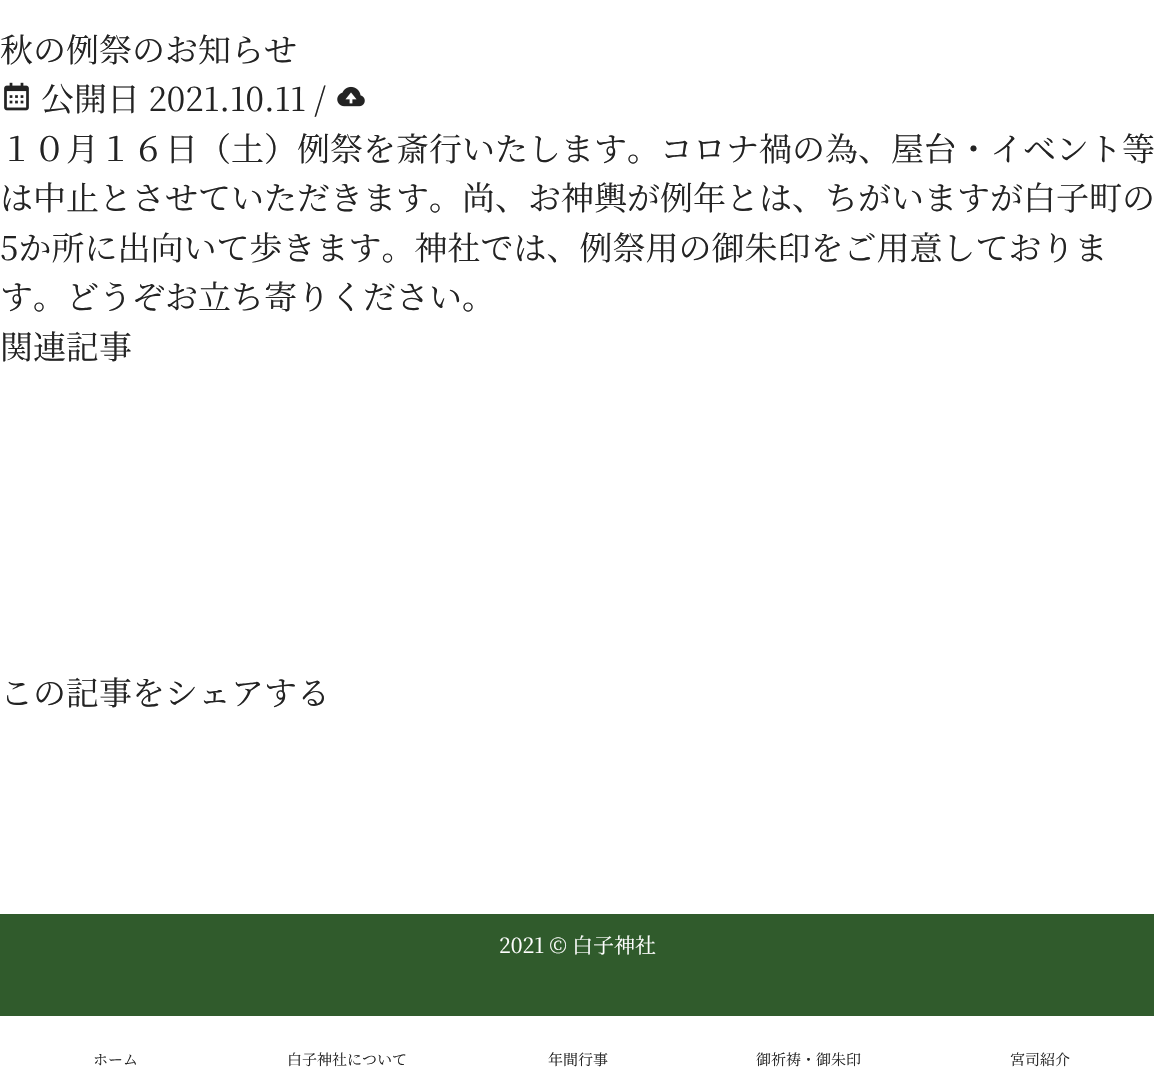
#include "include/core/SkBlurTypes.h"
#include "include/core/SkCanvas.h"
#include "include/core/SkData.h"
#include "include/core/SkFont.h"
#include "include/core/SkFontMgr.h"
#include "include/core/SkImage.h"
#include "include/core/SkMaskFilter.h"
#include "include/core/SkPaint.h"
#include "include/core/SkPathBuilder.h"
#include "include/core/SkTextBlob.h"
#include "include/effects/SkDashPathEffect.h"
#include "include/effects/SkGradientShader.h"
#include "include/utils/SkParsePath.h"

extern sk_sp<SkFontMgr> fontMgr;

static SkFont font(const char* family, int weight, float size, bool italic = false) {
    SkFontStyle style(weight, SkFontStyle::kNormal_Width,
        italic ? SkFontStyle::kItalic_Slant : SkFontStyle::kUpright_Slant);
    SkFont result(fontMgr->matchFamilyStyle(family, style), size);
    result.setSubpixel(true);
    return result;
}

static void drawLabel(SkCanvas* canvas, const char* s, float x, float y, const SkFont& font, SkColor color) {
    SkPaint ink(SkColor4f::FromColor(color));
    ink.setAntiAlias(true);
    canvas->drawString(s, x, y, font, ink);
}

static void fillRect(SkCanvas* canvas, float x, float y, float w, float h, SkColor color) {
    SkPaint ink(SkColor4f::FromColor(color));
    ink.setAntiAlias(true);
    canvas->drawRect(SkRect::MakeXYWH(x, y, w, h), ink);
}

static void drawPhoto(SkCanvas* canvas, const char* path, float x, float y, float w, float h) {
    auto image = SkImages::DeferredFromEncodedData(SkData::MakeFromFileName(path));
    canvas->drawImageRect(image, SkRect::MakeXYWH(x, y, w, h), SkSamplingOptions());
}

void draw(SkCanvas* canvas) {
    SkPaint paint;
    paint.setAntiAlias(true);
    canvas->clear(0xFFFFFFFF);
    SkFont font1 = font("Noto Serif JP", 400, 33);
    drawLabel(canvas, "秋の例祭のお知らせ", 0, 62, font1, 0xFF232323);
    drawPhoto(canvas, "assets/img1.png", 4, 82, 25, 29);
    drawLabel(canvas, "公開日 2021.10.11 /", 41, 111, font1, 0xFF232323);
    drawPhoto(canvas, "assets/img2.png", 337, 86, 28, 21);
    drawLabel(canvas, "１０月１６日（土）例祭を斎行いたします。コロナ禍の為、屋台・イベント等", 0, 161, font1, 0xFF232323);
    drawLabel(canvas, "は中止とさせていただきます。尚、お神輿が例年とは、ちがいますが白子町の", 0, 210, font1, 0xFF232323);
    drawLabel(canvas, "5か所に出向いて歩きます。神社では、例祭用の御朱印をご用意しておりま", 0, 260, font1, 0xFF232323);
    drawLabel(canvas, "す。どうぞお立ち寄りください。", 0, 309, font1, 0xFF232323);
    drawLabel(canvas, "関連記事", 0, 359, font1, 0xFF232323);
    drawLabel(canvas, "この記事をシェアする", 0, 705, font1, 0xFF232323);
    fillRect(canvas, 0, 914, 1154, 102, 0xFF305B2C);
    SkFont font2 = font("Noto Serif JP", 400, 21);
    drawLabel(canvas, "2021 © 白子神社", 499, 953, font2, 0xFFFFFFFF);
    SkFont font3 = font("Noto Serif JP", 400, 15);
    drawLabel(canvas, "ホーム", 93, 1065, font3, 0xFF232323);
    drawLabel(canvas, "白子神社について", 287, 1065, font3, 0xFF232323);
    drawLabel(canvas, "年間行事", 548, 1065, font3, 0xFF232323);
    drawLabel(canvas, "御祈祷・御朱印", 756, 1065, font3, 0xFF232323);
    drawLabel(canvas, "宮司紹介", 1010, 1065, font3, 0xFF232323);
}
